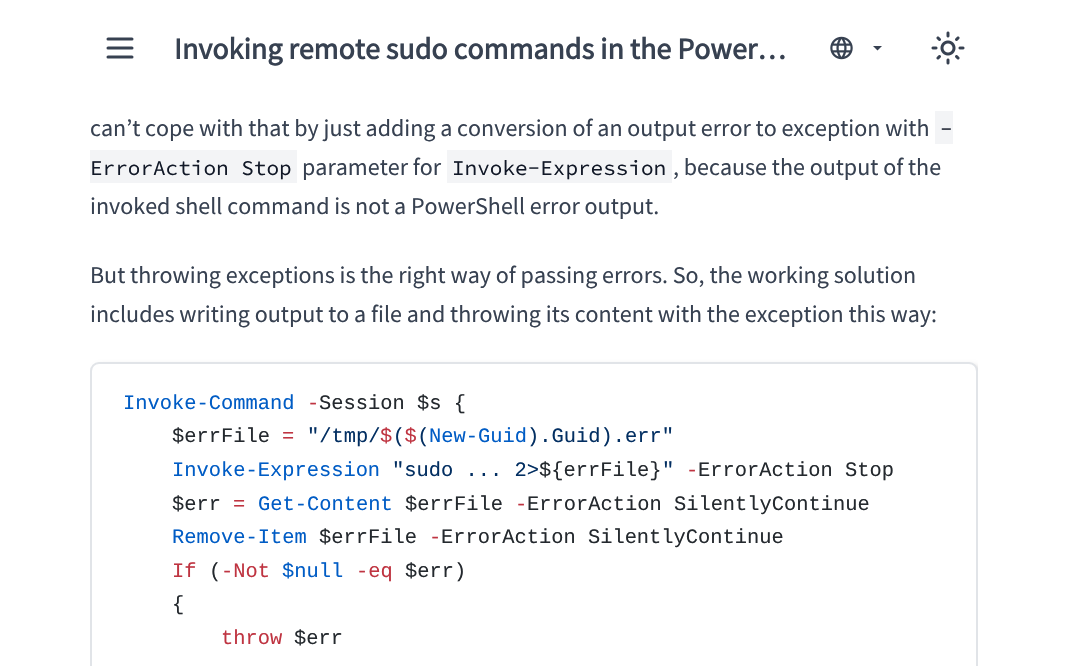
#include "include/core/SkBlurTypes.h"
#include "include/core/SkCanvas.h"
#include "include/core/SkData.h"
#include "include/core/SkFont.h"
#include "include/core/SkFontMgr.h"
#include "include/core/SkImage.h"
#include "include/core/SkMaskFilter.h"
#include "include/core/SkPaint.h"
#include "include/core/SkPathBuilder.h"
#include "include/core/SkTextBlob.h"
#include "include/effects/SkDashPathEffect.h"
#include "include/effects/SkGradientShader.h"
#include "include/utils/SkParsePath.h"

extern sk_sp<SkFontMgr> fontMgr;

static SkFont font(const char* family, int weight, float size, bool italic = false) {
    SkFontStyle style(weight, SkFontStyle::kNormal_Width,
        italic ? SkFontStyle::kItalic_Slant : SkFontStyle::kUpright_Slant);
    SkFont result(fontMgr->matchFamilyStyle(family, style), size);
    result.setSubpixel(true);
    return result;
}

static void drawLabel(SkCanvas* canvas, const char* s, float x, float y, const SkFont& font, SkColor color) {
    SkPaint ink(SkColor4f::FromColor(color));
    ink.setAntiAlias(true);
    canvas->drawString(s, x, y, font, ink);
}

static void fillRect(SkCanvas* canvas, float x, float y, float w, float h, SkColor color) {
    SkPaint ink(SkColor4f::FromColor(color));
    ink.setAntiAlias(true);
    canvas->drawRect(SkRect::MakeXYWH(x, y, w, h), ink);
}

static void drawPhoto(SkCanvas* canvas, const char* path, float x, float y, float w, float h) {
    auto image = SkImages::DeferredFromEncodedData(SkData::MakeFromFileName(path));
    canvas->drawImageRect(image, SkRect::MakeXYWH(x, y, w, h), SkSamplingOptions());
}

static SkPath parsePath(const char* data, bool evenOdd = false) {
    SkPath result = *SkParsePath::FromSVGString(data);
    if (evenOdd) result.setFillType(SkPathFillType::kEvenOdd);
    return result;
}

void draw(SkCanvas* canvas) {
    SkPaint paint;
    paint.setAntiAlias(true);
    canvas->clear(0xFFFFFFFF);
    paint.setStroke(true);
    paint.setStrokeWidth(3);
    paint.setStrokeCap(SkPaint::kRound_Cap);
    paint.setStrokeJoin(SkPaint::kRound_Join);
    paint.setColor(0xFF374151);
    canvas->drawPath(parsePath("M108 39H132M108 48H132M108 57H132"), paint);
    SkFont font1 = font("Source Sans Pro", 700, 30);
    drawLabel(canvas, "Invoking remote sudo commands in the Power…", 174, 59, font1, 0xFF374151);
    drawPhoto(canvas, "assets/img1.png", 830, 36, 23, 24);
    paint.setStroke(false);
    canvas->drawPath(parsePath("M873 46L877.5 50.5L882 46Z"), paint);
    drawPhoto(canvas, "assets/img2.png", 931, 31, 34, 34);
    SkFont font2 = font("Source Sans Pro", 400, 24);
    drawLabel(canvas, "can’t cope with that by just adding a conversion of an output error to exception with", 90, 136, font2, 0xFF374151);
    fillRect(canvas, 935, 111, 18, 33, 0xFFF3F4F6);
    SkFont font3 = font("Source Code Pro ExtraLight", 200, 21);
    drawLabel(canvas, "-", 940, 136, font3, 0xFF111827);
    fillRect(canvas, 90, 150, 207, 33, 0xFFF3F4F6);
    drawLabel(canvas, "ErrorAction Stop", 90, 175, font3, 0xFF111827);
    drawLabel(canvas, "parameter for", 302, 175, font2, 0xFF374151);
    fillRect(canvas, 447, 150, 225, 33, 0xFFF3F4F6);
    drawLabel(canvas, "Invoke-Expression", 452, 175, font3, 0xFF111827);
    drawLabel(canvas, ", because the output of the", 673, 175, font2, 0xFF374151);
    drawLabel(canvas, "invoked shell command is not a PowerShell error output.", 90, 214, font2, 0xFF374151);
    drawLabel(canvas, "But throwing exceptions is the right way of passing errors. So, the working solution", 90, 283, font2, 0xFF374151);
    drawLabel(canvas, "includes writing output to a file and throwing its content with the exception this way:", 90, 322, font2, 0xFF374151);
    canvas->save();
    canvas->clipRect(SkRect::MakeXYWH(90, 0, 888, 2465));
    paint.setColor(0x29000000);
    paint.setMaskFilter(SkMaskFilter::MakeBlur(kNormal_SkBlurStyle, 2.5f));
    canvas->drawRoundRect(SkRect::MakeXYWH(93, 365, 888, 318), 9, 9, paint);
    paint.setMaskFilter(nullptr);
    canvas->restore();
    paint.setColor(0xFFFFFFFF);
    canvas->drawRoundRect(SkRect::MakeXYWH(91, 363, 886, 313), 8, 8, paint);
    paint.setStroke(true);
    paint.setStrokeWidth(2);
    paint.setStrokeCap(SkPaint::kButt_Cap);
    paint.setStrokeJoin(SkPaint::kMiter_Join);
    paint.setColor(0xFFE1E4E8);
    canvas->drawRoundRect(SkRect::MakeXYWH(91, 363, 886, 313), 8, 8, paint);
    SkFont font4 = font("Liberation Mono", 400, 20.4f);
    drawLabel(canvas, "Invoke-Command", 123, 409, font4, 0xFF005CC5);
    drawLabel(canvas, "-", 307, 409, font4, 0xFFBF3441);
    drawLabel(canvas, "Session $s {", 319, 409, font4, 0xFF24292E);
    drawLabel(canvas, "$errFile", 172, 442, font4, 0xFF24292E);
    drawLabel(canvas, "\"/tmp/ ( (", 307, 442, font4, 0xFF032F62);
    drawLabel(canvas, "=", 282, 442, font4, 0xFFBF3441);
    drawLabel(canvas, "$ $", 380, 442, font4, 0xFFBF3441);
    drawLabel(canvas, "New-Guid", 429, 442, font4, 0xFF005CC5);
    drawLabel(canvas, ").Guid).err\"", 527, 442, font4, 0xFF032F62);
    drawLabel(canvas, "Invoke-Expression", 172, 476, font4, 0xFF005CC5);
    drawLabel(canvas, "\"sudo ... 2>", 392, 476, font4, 0xFF032F62);
    drawLabel(canvas, "${errFile}", 539, 476, font4, 0xFF24292E);
    drawLabel(canvas, "\"", 662, 476, font4, 0xFF032F62);
    drawLabel(canvas, "-", 686, 476, font4, 0xFFBF3441);
    drawLabel(canvas, "ErrorAction Stop", 698, 476, font4, 0xFF24292E);
    drawLabel(canvas, "$err", 172, 510, font4, 0xFF24292E);
    drawLabel(canvas, "=", 233, 510, font4, 0xFFBF3441);
    drawLabel(canvas, "Get-Content", 258, 510, font4, 0xFF005CC5);
    drawLabel(canvas, "$errFile", 405, 510, font4, 0xFF24292E);
    drawLabel(canvas, "-", 515, 510, font4, 0xFFBF3441);
    drawLabel(canvas, "ErrorAction SilentlyContinue", 527, 510, font4, 0xFF24292E);
    drawLabel(canvas, "Remove-Item", 172, 543, font4, 0xFF005CC5);
    drawLabel(canvas, "$errFile", 319, 543, font4, 0xFF24292E);
    drawLabel(canvas, "-", 429, 543, font4, 0xFFBF3441);
    drawLabel(canvas, "ErrorAction SilentlyContinue", 441, 543, font4, 0xFF24292E);
    drawLabel(canvas, "If", 172, 577, font4, 0xFFBF3441);
    drawLabel(canvas, "(", 209, 577, font4, 0xFF24292E);
    drawLabel(canvas, "-Not", 221, 577, font4, 0xFFBF3441);
    drawLabel(canvas, "$null", 282, 577, font4, 0xFF005CC5);
    drawLabel(canvas, "-eq", 356, 577, font4, 0xFFBF3441);
    drawLabel(canvas, "$err)", 405, 577, font4, 0xFF24292E);
    drawLabel(canvas, "{", 172, 610, font4, 0xFF24292E);
    drawLabel(canvas, "throw", 221, 644, font4, 0xFFBF3441);
    drawLabel(canvas, "$err", 294, 644, font4, 0xFF24292E);
}
